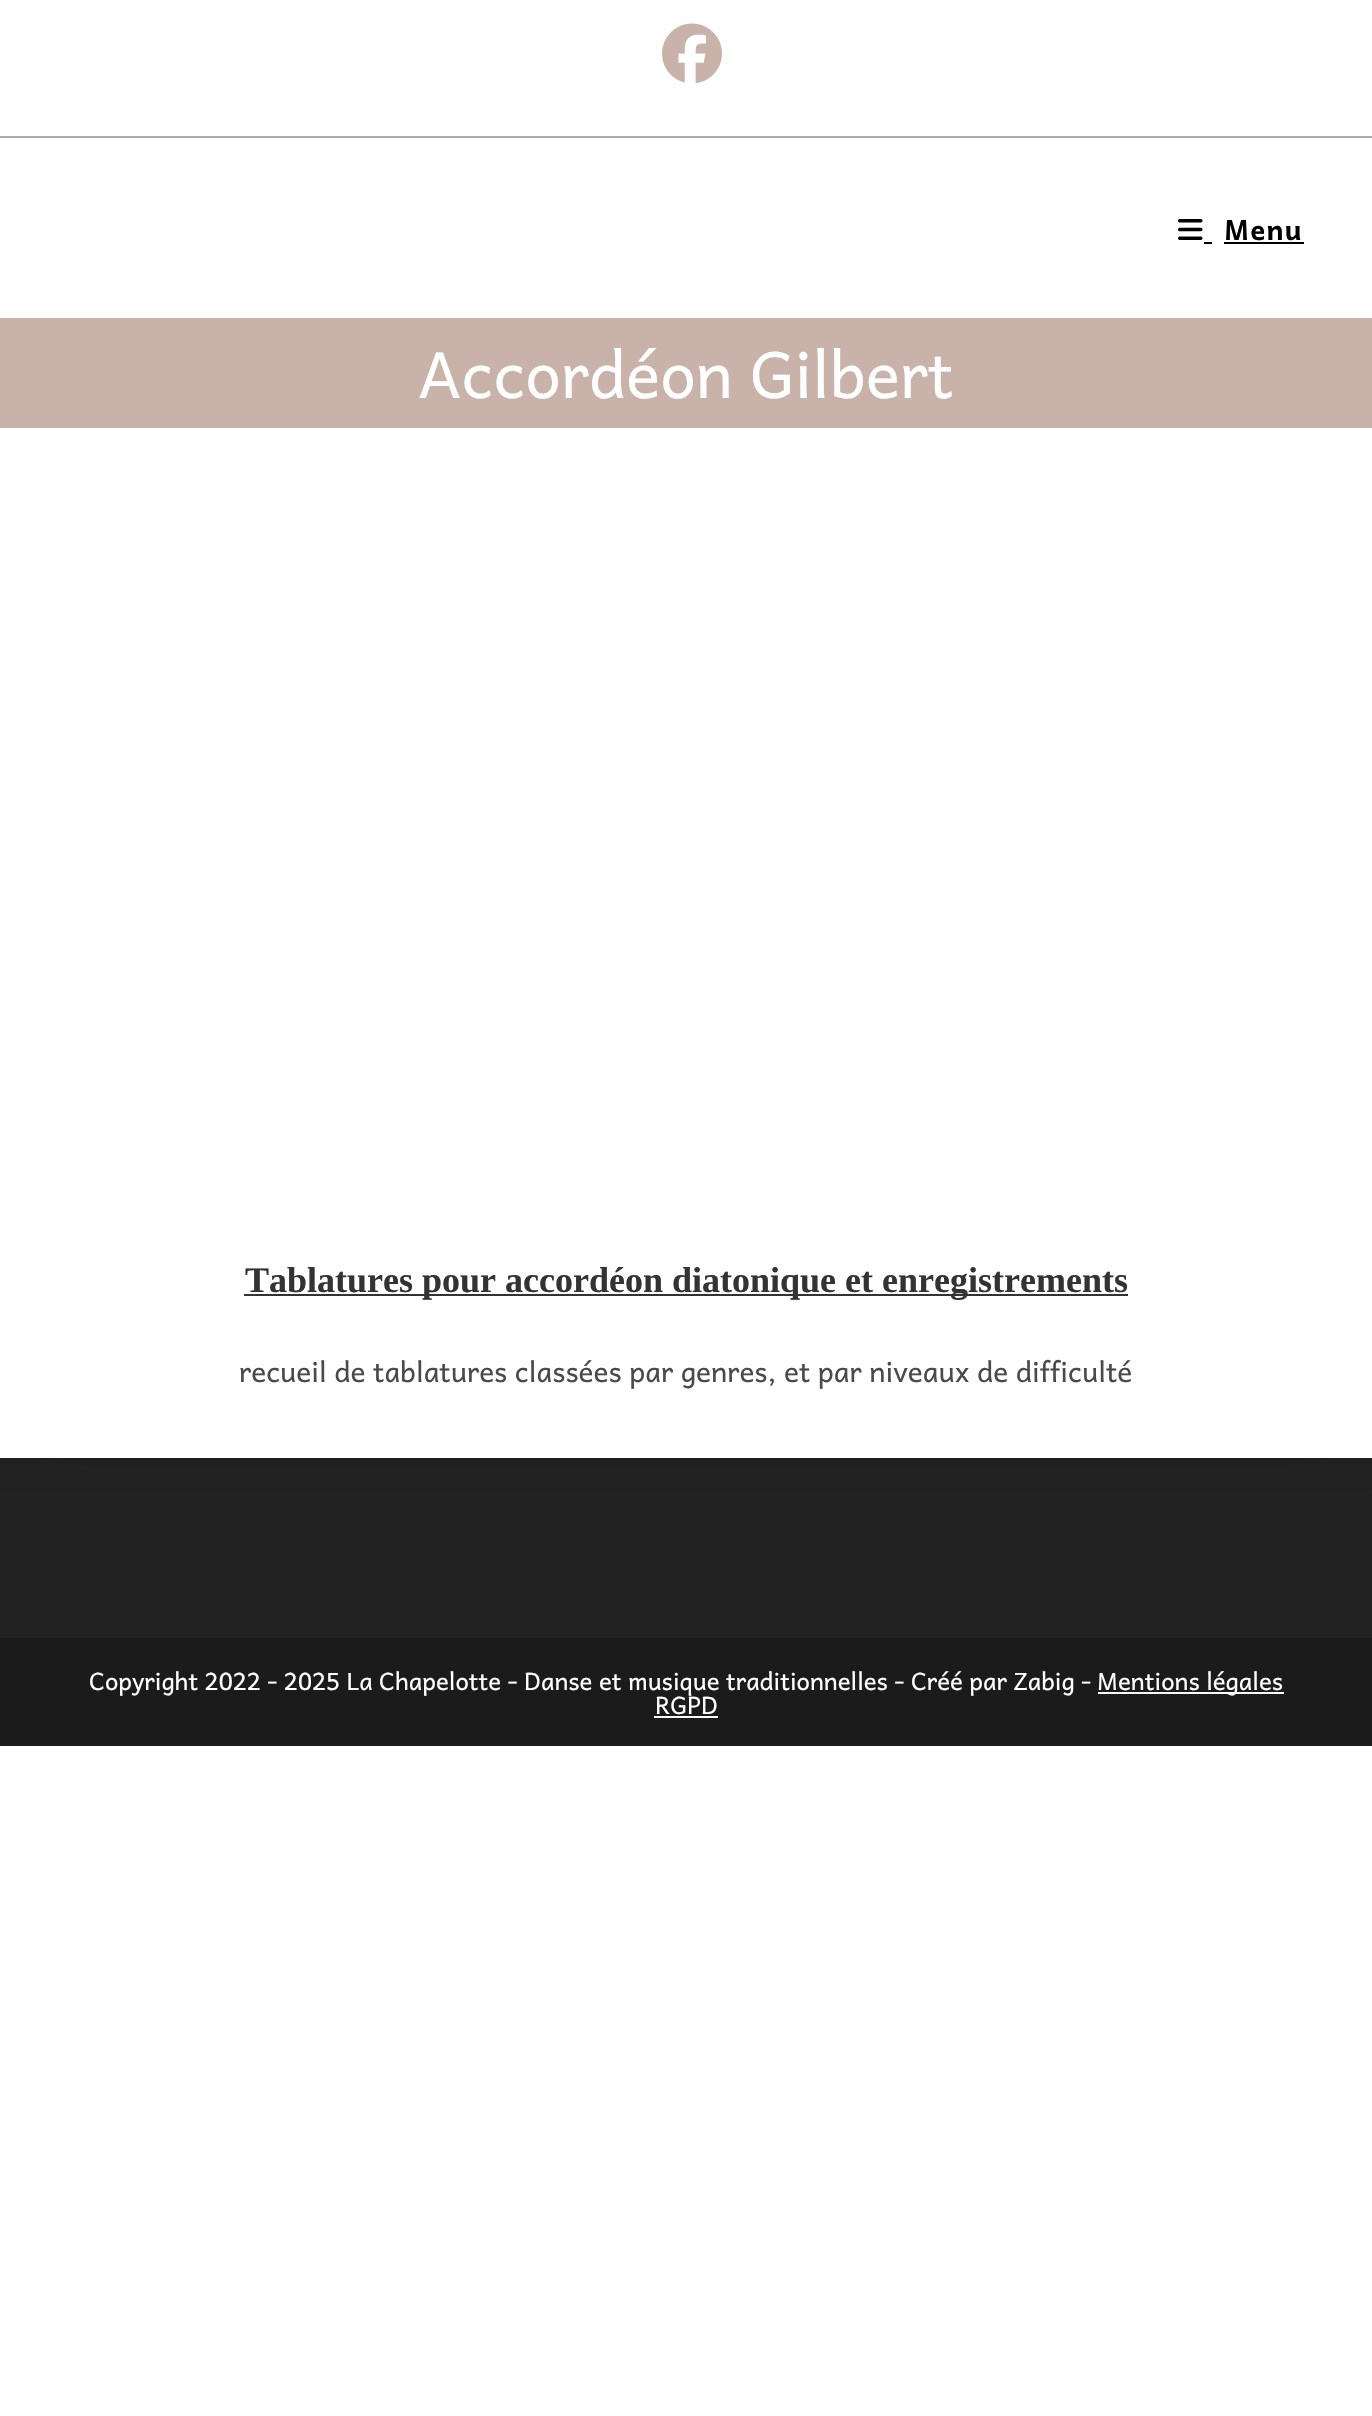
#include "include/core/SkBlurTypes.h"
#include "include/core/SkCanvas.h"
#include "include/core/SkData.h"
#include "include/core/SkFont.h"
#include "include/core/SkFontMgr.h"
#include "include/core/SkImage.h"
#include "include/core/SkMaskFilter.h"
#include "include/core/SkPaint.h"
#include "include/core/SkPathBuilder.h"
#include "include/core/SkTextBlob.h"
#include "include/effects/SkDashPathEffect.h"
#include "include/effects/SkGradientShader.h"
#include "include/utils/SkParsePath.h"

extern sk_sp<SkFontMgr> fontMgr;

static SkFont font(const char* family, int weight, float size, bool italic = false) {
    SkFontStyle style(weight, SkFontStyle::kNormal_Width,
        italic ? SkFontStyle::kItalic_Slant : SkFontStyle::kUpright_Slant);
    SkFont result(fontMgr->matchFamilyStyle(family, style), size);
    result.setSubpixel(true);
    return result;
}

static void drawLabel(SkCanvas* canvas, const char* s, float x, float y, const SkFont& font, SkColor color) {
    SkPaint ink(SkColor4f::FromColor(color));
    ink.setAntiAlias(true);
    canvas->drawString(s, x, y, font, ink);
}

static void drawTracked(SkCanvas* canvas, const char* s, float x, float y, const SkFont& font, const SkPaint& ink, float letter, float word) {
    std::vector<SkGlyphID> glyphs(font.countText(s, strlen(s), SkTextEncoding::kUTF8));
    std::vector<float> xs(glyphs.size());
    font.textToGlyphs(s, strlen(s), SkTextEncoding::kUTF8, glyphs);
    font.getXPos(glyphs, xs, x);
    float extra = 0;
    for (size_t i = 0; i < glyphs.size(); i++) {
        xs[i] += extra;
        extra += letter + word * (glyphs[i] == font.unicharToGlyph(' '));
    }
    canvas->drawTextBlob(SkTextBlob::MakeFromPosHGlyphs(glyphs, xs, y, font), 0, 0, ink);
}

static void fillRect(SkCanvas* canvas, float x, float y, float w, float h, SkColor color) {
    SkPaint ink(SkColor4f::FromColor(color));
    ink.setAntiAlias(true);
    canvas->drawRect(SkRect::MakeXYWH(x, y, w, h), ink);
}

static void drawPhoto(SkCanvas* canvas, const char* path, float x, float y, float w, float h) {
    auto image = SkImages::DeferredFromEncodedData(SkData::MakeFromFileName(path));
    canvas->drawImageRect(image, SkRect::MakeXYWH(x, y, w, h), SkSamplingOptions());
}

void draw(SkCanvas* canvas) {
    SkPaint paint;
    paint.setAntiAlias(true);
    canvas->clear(0xFFFFFFFF);
    fillRect(canvas, 0, 136, 1372, 2, 0xFFAAAAAA);
    drawPhoto(canvas, "assets/img1.png", 662, 23, 60, 61);
    fillRect(canvas, 0, 1458, 1372, 180, 0xFF222222);
    canvas->save();
    canvas->clipRect(SkRect::MakeXYWH(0, 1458, 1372, 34));
    paint.setColor(0x1A000000);
    paint.setMaskFilter(SkMaskFilter::MakeBlur(kNormal_SkBlurStyle, 40));
    canvas->drawRect(SkRect::MakeXYWH(0, 318, 1372, 1140), paint);
    paint.setMaskFilter(nullptr);
    canvas->restore();
    fillRect(canvas, 0, 267, 1372, 51, 0xFFFFFFFF);
    drawPhoto(canvas, "assets/img2.png", 1178, 219, 25, 21);
    SkFont font1 = font("Andika", 700, 28);
    paint.setColor(0xFF020101);
    drawTracked(canvas, "Menu", 1224, 240, font1, paint, 1, 0);
    fillRect(canvas, 1224, 242, 80, 2, 0xFF020101);
    fillRect(canvas, 1204, 242, 8, 2, 0xFF020101);
    fillRect(canvas, 0, 318, 1372, 110, 0xFFC9B2A9);
    SkFont font2 = font("Andika", 400, 64);
    drawLabel(canvas, "Accordéon Gilbert", 418, 398, font2, 0xFFFFFFFF);
    fillRect(canvas, 244, 1294, 884, 2, 0xFF333333);
    SkFont font3 = font("Liberation Serif", 700, 36);
    drawLabel(canvas, "Tablatures pour accordéon diatonique et enregistrements", 245, 1292, font3, 0xFF333333);
    SkFont font4 = font("Andika", 400, 28);
    drawLabel(canvas, "recueil de tablatures classées par genres, et par niveaux de difficulté", 239, 1382, font4, 0xFF4A4A4A);
    fillRect(canvas, 0, 1638, 1372, 108, 0xFF1B1B1B);
    SkFont font5 = font("Andika", 400, 24);
    drawLabel(canvas, "Copyright 2022 - 2025 La Chapelotte - Danse et musique traditionnelles - Créé par Zabig -", 89, 1690, font5, 0xFFFFFFFF);
    fillRect(canvas, 1098, 1692, 186, 2, 0xFFFFFFFF);
    drawLabel(canvas, "Mentions légales", 1097, 1690, font5, 0xFFFFFFFF);
    drawLabel(canvas, "RGPD", 655, 1714, font5, 0xFFFFFFFF);
    fillRect(canvas, 654, 1716, 64, 2, 0xFFFFFFFF);
}
